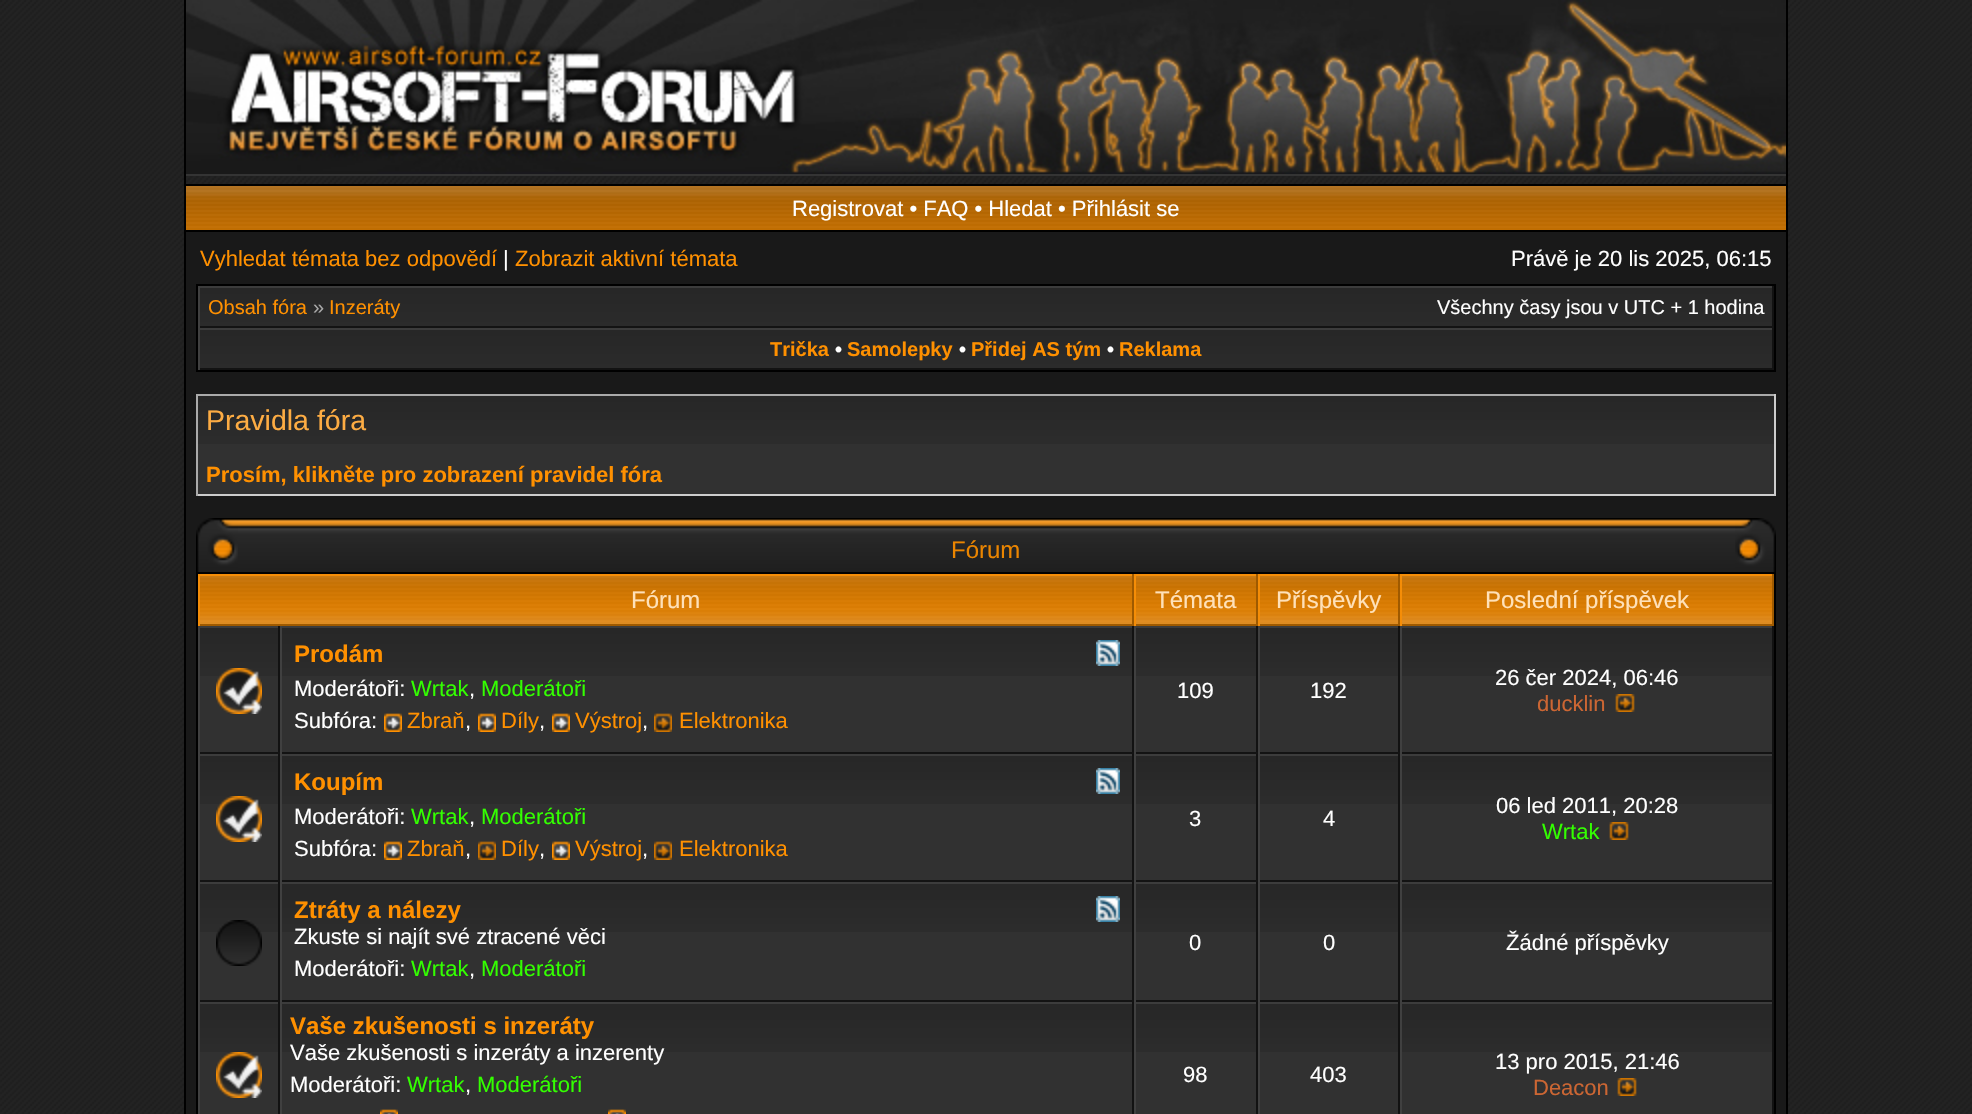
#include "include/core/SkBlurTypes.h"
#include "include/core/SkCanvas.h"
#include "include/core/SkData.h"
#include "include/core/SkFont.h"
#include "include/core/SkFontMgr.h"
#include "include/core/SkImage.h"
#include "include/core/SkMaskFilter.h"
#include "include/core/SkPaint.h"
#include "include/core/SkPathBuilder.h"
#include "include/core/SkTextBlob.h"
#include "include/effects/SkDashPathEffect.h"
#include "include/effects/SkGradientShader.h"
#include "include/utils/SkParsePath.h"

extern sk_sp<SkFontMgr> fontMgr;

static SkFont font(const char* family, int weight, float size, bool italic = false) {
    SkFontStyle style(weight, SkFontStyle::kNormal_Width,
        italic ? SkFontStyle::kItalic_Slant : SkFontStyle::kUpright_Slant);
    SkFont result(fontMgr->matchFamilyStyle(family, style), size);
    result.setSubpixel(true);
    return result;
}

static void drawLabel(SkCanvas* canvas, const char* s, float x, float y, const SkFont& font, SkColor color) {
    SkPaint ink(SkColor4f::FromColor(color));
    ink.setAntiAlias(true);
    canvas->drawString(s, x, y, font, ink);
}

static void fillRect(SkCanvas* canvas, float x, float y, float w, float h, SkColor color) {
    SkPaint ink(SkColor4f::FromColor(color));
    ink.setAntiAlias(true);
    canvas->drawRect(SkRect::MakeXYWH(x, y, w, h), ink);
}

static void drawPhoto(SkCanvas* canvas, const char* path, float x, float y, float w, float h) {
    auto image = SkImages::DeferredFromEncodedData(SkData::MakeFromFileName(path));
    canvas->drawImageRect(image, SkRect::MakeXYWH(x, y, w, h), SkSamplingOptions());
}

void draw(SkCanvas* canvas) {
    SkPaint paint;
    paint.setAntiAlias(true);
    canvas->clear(0xFFFFFFFF);
    drawPhoto(canvas, "assets/img1.png", 0, 0, 1972, 1114);
    fillRect(canvas, 1786, 0, 2, 1114, 0xFF000000);
    fillRect(canvas, 184, 0, 2, 1114, 0xFF000000);
    drawPhoto(canvas, "assets/img2.png", 186, 174, 1600, 2);
    drawPhoto(canvas, "assets/img3.png", 186, 0, 1600, 174);
    drawPhoto(canvas, "assets/img4.png", 186, 186, 1600, 44);
    fillRect(canvas, 186, 184, 1600, 2, 0xFF000000);
    fillRect(canvas, 186, 230, 1600, 2, 0xFF000000);
    SkFont font1 = font("Liberation Sans", 400, 22);
    drawLabel(canvas, "Registrovat • FAQ • Hledat • Přihlásit se", 792, 216, font1, 0xFFFFFFFF);
    fillRect(canvas, 186, 232, 1600, 882, 0xFF191919);
    drawLabel(canvas, "Vyhledat témata bez odpovědí", 200, 266, font1, 0xFFFF9000);
    drawLabel(canvas, "|", 503, 266, font1, 0xFFFFFFFF);
    drawLabel(canvas, "Zobrazit aktivní témata", 515, 266, font1, 0xFFFF9000);
    drawLabel(canvas, "Právě je 20 lis 2025, 06:15", 1511, 266, font1, 0xFFFFFFFF);
    paint.setStroke(true);
    paint.setStrokeWidth(2);
    paint.setColor(0xFF000000);
    canvas->drawRect(SkRect::MakeXYWH(197, 285, 1578, 86), paint);
    drawPhoto(canvas, "assets/img5.png", 200, 288, 1572, 38);
    fillRect(canvas, 198, 286, 1576, 2, 0xFF3C3C3C);
    fillRect(canvas, 1772, 286, 2, 42, 0xFF121212);
    fillRect(canvas, 198, 326, 1576, 2, 0xFF131313);
    fillRect(canvas, 198, 286, 2, 42, 0xFF404040);
    SkFont font2 = font("Liberation Sans", 400, 20);
    drawLabel(canvas, "Obsah fóra", 208, 314, font2, 0xFFFF9000);
    drawLabel(canvas, "»", 313, 314, font2, 0xFFAAAAAA);
    drawLabel(canvas, "Inzeráty", 329, 314, font2, 0xFFFF9000);
    drawLabel(canvas, "Všechny časy jsou v UTC + 1 hodina", 1437, 314, font2, 0xFFFFFFFF);
    drawPhoto(canvas, "assets/img5.png", 200, 330, 1572, 38);
    fillRect(canvas, 198, 328, 1576, 2, 0xFF3C3C3C);
    fillRect(canvas, 1772, 328, 2, 42, 0xFF121212);
    fillRect(canvas, 198, 368, 1576, 2, 0xFF131313);
    fillRect(canvas, 198, 328, 2, 42, 0xFF404040);
    SkFont font3 = font("Liberation Sans", 700, 20);
    drawLabel(canvas, "Trička", 770, 356, font3, 0xFFFF9000);
    drawLabel(canvas, "•", 835, 356, font3, 0xFFFFFFFF);
    drawLabel(canvas, "Samolepky", 847, 356, font3, 0xFFFF9000);
    drawLabel(canvas, "•", 959, 356, font3, 0xFFFFFFFF);
    drawLabel(canvas, "Přidej AS tým", 971, 356, font3, 0xFFFF9000);
    drawLabel(canvas, "•", 1107, 356, font3, 0xFFFFFFFF);
    drawLabel(canvas, "Reklama", 1119, 356, font3, 0xFFFF9000);
    fillRect(canvas, 198, 444, 1576, 50, 0xFF313131);
    drawPhoto(canvas, "assets/img6.png", 198, 396, 1576, 48);
    fillRect(canvas, 196, 394, 1580, 2, 0xFFAAAAAA);
    fillRect(canvas, 1774, 394, 2, 102, 0xFFCCCCCC);
    fillRect(canvas, 196, 494, 1580, 2, 0xFFCCCCCC);
    fillRect(canvas, 196, 394, 2, 102, 0xFFAAAAAA);
    SkFont font4 = font("Liberation Sans", 400, 28.5f);
    drawLabel(canvas, "Pravidla fóra", 206, 430, font4, 0xFFFDAC43);
    SkFont font5 = font("Liberation Sans", 700, 22);
    drawLabel(canvas, "Prosím, klikněte pro zobrazení pravidel fóra", 206, 482, font5, 0xFFFF9000);
    drawPhoto(canvas, "assets/img7.png", 238, 518, 1497, 54);
    drawPhoto(canvas, "assets/img8.png", 196, 518, 42, 54);
    drawPhoto(canvas, "assets/img9.png", 1735, 518, 41, 54);
    SkFont font6 = font("Liberation Sans", 400, 24);
    drawLabel(canvas, "Fórum", 951, 558, font6, 0xFFEB8500);
    fillRect(canvas, 200, 676, 1572, 438, 0xFF313131);
    canvas->drawRect(SkRect::MakeXYWH(197, 573, 1578, 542), paint);
    drawPhoto(canvas, "assets/img10.png", 200, 576, 932, 48);
    fillRect(canvas, 198, 574, 1576, 2, 0xFFF58D07);
    fillRect(canvas, 1132, 574, 2, 52, 0xFF9F5A00);
    fillRect(canvas, 198, 624, 936, 2, 0xFF9F5A00);
    fillRect(canvas, 198, 574, 2, 52, 0xFFF58D07);
    drawLabel(canvas, "Fórum", 631, 608, font6, 0xFFFFE1B9);
    drawPhoto(canvas, "assets/img11.png", 1136, 576, 120, 48);
    fillRect(canvas, 1256, 574, 2, 52, 0xFF9F5A00);
    fillRect(canvas, 1134, 624, 124, 2, 0xFF9F5A00);
    fillRect(canvas, 1134, 574, 2, 52, 0xFFF58D07);
    drawLabel(canvas, "Témata", 1155, 608, font6, 0xFFFFE1B9);
    drawPhoto(canvas, "assets/img12.png", 1260, 576, 138, 48);
    fillRect(canvas, 1398, 574, 2, 52, 0xFF9F5A00);
    fillRect(canvas, 1258, 624, 142, 2, 0xFF9F5A00);
    fillRect(canvas, 1258, 574, 2, 52, 0xFFF58D07);
    drawLabel(canvas, "Příspěvky", 1276, 608, font6, 0xFFFFE1B9);
    drawPhoto(canvas, "assets/img13.png", 1402, 576, 370, 48);
    fillRect(canvas, 1772, 574, 2, 52, 0xFF9F5A00);
    fillRect(canvas, 1400, 624, 374, 2, 0xFF9F5A00);
    fillRect(canvas, 1400, 574, 2, 52, 0xFFF58D07);
    drawLabel(canvas, "Poslední příspěvek", 1485, 608, font6, 0xFFFFE1B9);
    drawPhoto(canvas, "assets/img14.png", 200, 628, 78, 48);
    fillRect(canvas, 198, 626, 1576, 2, 0xFF3C3C3C);
    fillRect(canvas, 278, 626, 2, 128, 0xFF121212);
    fillRect(canvas, 198, 752, 82, 2, 0xFF131313);
    fillRect(canvas, 198, 626, 2, 128, 0xFF404040);
    drawPhoto(canvas, "assets/img15.png", 216, 668, 46, 46);
    drawPhoto(canvas, "assets/img16.png", 282, 628, 850, 48);
    fillRect(canvas, 1132, 626, 2, 128, 0xFF121212);
    fillRect(canvas, 280, 752, 854, 2, 0xFF131313);
    fillRect(canvas, 280, 626, 2, 128, 0xFF404040);
    SkFont font7 = font("Liberation Sans", 700, 24);
    drawLabel(canvas, "Prodám", 294, 662, font7, 0xFFFF9000);
    drawLabel(canvas, "Moderátoři:", 294, 696, font1, 0xFFFFFFFF);
    drawLabel(canvas, "Wrtak", 411, 696, font1, 0xFF33FF00);
    drawLabel(canvas, ",", 469, 696, font1, 0xFFFFFFFF);
    drawLabel(canvas, "Moderátoři", 481, 696, font1, 0xFF33FF00);
    drawLabel(canvas, "Subfóra:", 294, 728, font1, 0xFFFFFFFF);
    drawPhoto(canvas, "assets/img17.png", 384, 713, 18, 19);
    drawLabel(canvas, "Zbraň", 407, 728, font1, 0xFFFF9000);
    drawLabel(canvas, ",", 465, 728, font1, 0xFFFFFFFF);
    drawPhoto(canvas, "assets/img17.png", 478, 713, 18, 19);
    drawLabel(canvas, "Díly", 501, 728, font1, 0xFFFF9000);
    drawLabel(canvas, ",", 539, 728, font1, 0xFFFFFFFF);
    drawPhoto(canvas, "assets/img17.png", 552, 713, 18, 19);
    drawLabel(canvas, "Výstroj", 575, 728, font1, 0xFFFF9000);
    drawLabel(canvas, ",", 642, 728, font1, 0xFFFFFFFF);
    drawPhoto(canvas, "assets/img18.png", 654, 713, 18, 19);
    drawLabel(canvas, "Elektronika", 679, 728, font1, 0xFFFF9000);
    drawPhoto(canvas, "assets/img19.png", 1096, 640, 24, 26);
    drawPhoto(canvas, "assets/img20.png", 1136, 628, 120, 48);
    fillRect(canvas, 1256, 626, 2, 128, 0xFF121212);
    fillRect(canvas, 1134, 752, 124, 2, 0xFF131313);
    fillRect(canvas, 1134, 626, 2, 128, 0xFF404040);
    drawLabel(canvas, "109", 1177, 698, font1, 0xFFFFFFFF);
    drawPhoto(canvas, "assets/img21.png", 1260, 628, 138, 48);
    fillRect(canvas, 1398, 626, 2, 128, 0xFF121212);
    fillRect(canvas, 1258, 752, 142, 2, 0xFF131313);
    fillRect(canvas, 1258, 626, 2, 128, 0xFF404040);
    drawLabel(canvas, "192", 1310, 698, font1, 0xFFFFFFFF);
    drawPhoto(canvas, "assets/img22.png", 1402, 628, 370, 48);
    fillRect(canvas, 1772, 626, 2, 128, 0xFF121212);
    fillRect(canvas, 1400, 752, 374, 2, 0xFF131313);
    fillRect(canvas, 1400, 626, 2, 128, 0xFF404040);
    drawLabel(canvas, "26 čer 2024, 06:46", 1495, 685, font1, 0xFFFFFFFF);
    drawLabel(canvas, "ducklin", 1537, 711, font1, 0xFFCC6633);
    drawPhoto(canvas, "assets/img23.png", 1615, 694, 20, 18);
    drawPhoto(canvas, "assets/img14.png", 200, 756, 78, 48);
    fillRect(canvas, 198, 754, 1576, 2, 0xFF3C3C3C);
    fillRect(canvas, 278, 754, 2, 128, 0xFF121212);
    fillRect(canvas, 198, 880, 82, 2, 0xFF131313);
    fillRect(canvas, 198, 754, 2, 128, 0xFF404040);
    drawPhoto(canvas, "assets/img15.png", 216, 796, 46, 46);
    drawPhoto(canvas, "assets/img16.png", 282, 756, 850, 48);
    fillRect(canvas, 1132, 754, 2, 128, 0xFF121212);
    fillRect(canvas, 280, 880, 854, 2, 0xFF131313);
    fillRect(canvas, 280, 754, 2, 128, 0xFF404040);
    drawLabel(canvas, "Koupím", 294, 790, font7, 0xFFFF9000);
    drawLabel(canvas, "Moderátoři:", 294, 824, font1, 0xFFFFFFFF);
    drawLabel(canvas, "Wrtak", 411, 824, font1, 0xFF33FF00);
    drawLabel(canvas, ",", 469, 824, font1, 0xFFFFFFFF);
    drawLabel(canvas, "Moderátoři", 481, 824, font1, 0xFF33FF00);
    drawLabel(canvas, "Subfóra:", 294, 856, font1, 0xFFFFFFFF);
    drawPhoto(canvas, "assets/img17.png", 384, 841, 18, 19);
    drawLabel(canvas, "Zbraň", 407, 856, font1, 0xFFFF9000);
    drawLabel(canvas, ",", 465, 856, font1, 0xFFFFFFFF);
    drawPhoto(canvas, "assets/img18.png", 478, 841, 18, 19);
    drawLabel(canvas, "Díly", 501, 856, font1, 0xFFFF9000);
    drawLabel(canvas, ",", 539, 856, font1, 0xFFFFFFFF);
    drawPhoto(canvas, "assets/img17.png", 552, 841, 18, 19);
    drawLabel(canvas, "Výstroj", 575, 856, font1, 0xFFFF9000);
    drawLabel(canvas, ",", 642, 856, font1, 0xFFFFFFFF);
    drawPhoto(canvas, "assets/img18.png", 654, 841, 18, 19);
    drawLabel(canvas, "Elektronika", 679, 856, font1, 0xFFFF9000);
    drawPhoto(canvas, "assets/img19.png", 1096, 768, 24, 26);
    drawPhoto(canvas, "assets/img20.png", 1136, 756, 120, 48);
    fillRect(canvas, 1256, 754, 2, 128, 0xFF121212);
    fillRect(canvas, 1134, 880, 124, 2, 0xFF131313);
    fillRect(canvas, 1134, 754, 2, 128, 0xFF404040);
    drawLabel(canvas, "3", 1189, 826, font1, 0xFFFFFFFF);
    drawPhoto(canvas, "assets/img21.png", 1260, 756, 138, 48);
    fillRect(canvas, 1398, 754, 2, 128, 0xFF121212);
    fillRect(canvas, 1258, 880, 142, 2, 0xFF131313);
    fillRect(canvas, 1258, 754, 2, 128, 0xFF404040);
    drawLabel(canvas, "4", 1323, 826, font1, 0xFFFFFFFF);
    drawPhoto(canvas, "assets/img22.png", 1402, 756, 370, 48);
    fillRect(canvas, 1772, 754, 2, 128, 0xFF121212);
    fillRect(canvas, 1400, 880, 374, 2, 0xFF131313);
    fillRect(canvas, 1400, 754, 2, 128, 0xFF404040);
    drawLabel(canvas, "06 led 2011, 20:28", 1496, 813, font1, 0xFFFFFFFF);
    drawLabel(canvas, "Wrtak", 1542, 839, font1, 0xFF33FF00);
    drawPhoto(canvas, "assets/img23.png", 1609, 822, 20, 18);
    drawPhoto(canvas, "assets/img14.png", 200, 884, 78, 48);
    fillRect(canvas, 198, 882, 1576, 2, 0xFF3C3C3C);
    fillRect(canvas, 278, 882, 2, 120, 0xFF121212);
    fillRect(canvas, 198, 1000, 82, 2, 0xFF131313);
    fillRect(canvas, 198, 882, 2, 120, 0xFF404040);
    drawPhoto(canvas, "assets/img24.png", 216, 920, 46, 46);
    drawPhoto(canvas, "assets/img16.png", 282, 884, 850, 48);
    fillRect(canvas, 1132, 882, 2, 120, 0xFF121212);
    fillRect(canvas, 280, 1000, 854, 2, 0xFF131313);
    fillRect(canvas, 280, 882, 2, 120, 0xFF404040);
    drawLabel(canvas, "Ztráty a nálezy", 294, 918, font7, 0xFFFF9000);
    drawLabel(canvas, "Zkuste si najít své ztracené věci", 294, 944, font1, 0xFFFFFFFF);
    drawLabel(canvas, "Moderátoři:", 294, 976, font1, 0xFFFFFFFF);
    drawLabel(canvas, "Wrtak", 411, 976, font1, 0xFF33FF00);
    drawLabel(canvas, ",", 469, 976, font1, 0xFFFFFFFF);
    drawLabel(canvas, "Moderátoři", 481, 976, font1, 0xFF33FF00);
    drawPhoto(canvas, "assets/img19.png", 1096, 896, 24, 26);
    drawPhoto(canvas, "assets/img20.png", 1136, 884, 120, 48);
    fillRect(canvas, 1256, 882, 2, 120, 0xFF121212);
    fillRect(canvas, 1134, 1000, 124, 2, 0xFF131313);
    fillRect(canvas, 1134, 882, 2, 120, 0xFF404040);
    drawLabel(canvas, "0", 1189, 950, font1, 0xFFFFFFFF);
    drawPhoto(canvas, "assets/img21.png", 1260, 884, 138, 48);
    fillRect(canvas, 1398, 882, 2, 120, 0xFF121212);
    fillRect(canvas, 1258, 1000, 142, 2, 0xFF131313);
    fillRect(canvas, 1258, 882, 2, 120, 0xFF404040);
    drawLabel(canvas, "0", 1323, 950, font1, 0xFFFFFFFF);
    drawPhoto(canvas, "assets/img22.png", 1402, 884, 370, 48);
    fillRect(canvas, 1772, 882, 2, 120, 0xFF121212);
    fillRect(canvas, 1400, 1000, 374, 2, 0xFF131313);
    fillRect(canvas, 1400, 882, 2, 120, 0xFF404040);
    drawLabel(canvas, "Žádné příspěvky", 1506, 950, font1, 0xFFFFFFFF);
    drawPhoto(canvas, "assets/img14.png", 200, 1004, 78, 48);
    fillRect(canvas, 198, 1002, 1576, 2, 0xFF3C3C3C);
    fillRect(canvas, 278, 1002, 2, 112, 0xFF121212);
    fillRect(canvas, 198, 1002, 2, 112, 0xFF404040);
    drawPhoto(canvas, "assets/img25.png", 216, 1052, 46, 46);
    drawPhoto(canvas, "assets/img16.png", 282, 1004, 850, 48);
    fillRect(canvas, 1132, 1002, 2, 112, 0xFF121212);
    fillRect(canvas, 280, 1002, 2, 112, 0xFF404040);
    drawLabel(canvas, "Vaše zkušenosti s inzeráty", 290, 1034, font7, 0xFFFF9000);
    drawLabel(canvas, "Vaše zkušenosti s inzeráty a inzerenty", 290, 1060, font1, 0xFFFFFFFF);
    drawLabel(canvas, "Moderátoři:", 290, 1092, font1, 0xFFFFFFFF);
    drawLabel(canvas, "Wrtak", 407, 1092, font1, 0xFF33FF00);
    drawLabel(canvas, ",", 465, 1092, font1, 0xFFFFFFFF);
    drawLabel(canvas, "Moderátoři", 477, 1092, font1, 0xFF33FF00);
    drawPhoto(canvas, "assets/img26.png", 380, 1109, 18, 5);
    drawPhoto(canvas, "assets/img26.png", 608, 1109, 18, 5);
    drawPhoto(canvas, "assets/img20.png", 1136, 1004, 120, 48);
    fillRect(canvas, 1256, 1002, 2, 112, 0xFF121212);
    fillRect(canvas, 1134, 1002, 2, 112, 0xFF404040);
    drawLabel(canvas, "98", 1183, 1082, font1, 0xFFFFFFFF);
    drawPhoto(canvas, "assets/img21.png", 1260, 1004, 138, 48);
    fillRect(canvas, 1398, 1002, 2, 112, 0xFF121212);
    fillRect(canvas, 1258, 1002, 2, 112, 0xFF404040);
    drawLabel(canvas, "403", 1310, 1082, font1, 0xFFFFFFFF);
    drawPhoto(canvas, "assets/img22.png", 1402, 1004, 370, 48);
    fillRect(canvas, 1772, 1002, 2, 112, 0xFF121212);
    fillRect(canvas, 1400, 1002, 2, 112, 0xFF404040);
    drawLabel(canvas, "13 pro 2015, 21:46", 1495, 1069, font1, 0xFFFFFFFF);
    drawLabel(canvas, "Deacon", 1533, 1095, font1, 0xFFCC6633);
    drawPhoto(canvas, "assets/img23.png", 1617, 1078, 20, 18);
}
